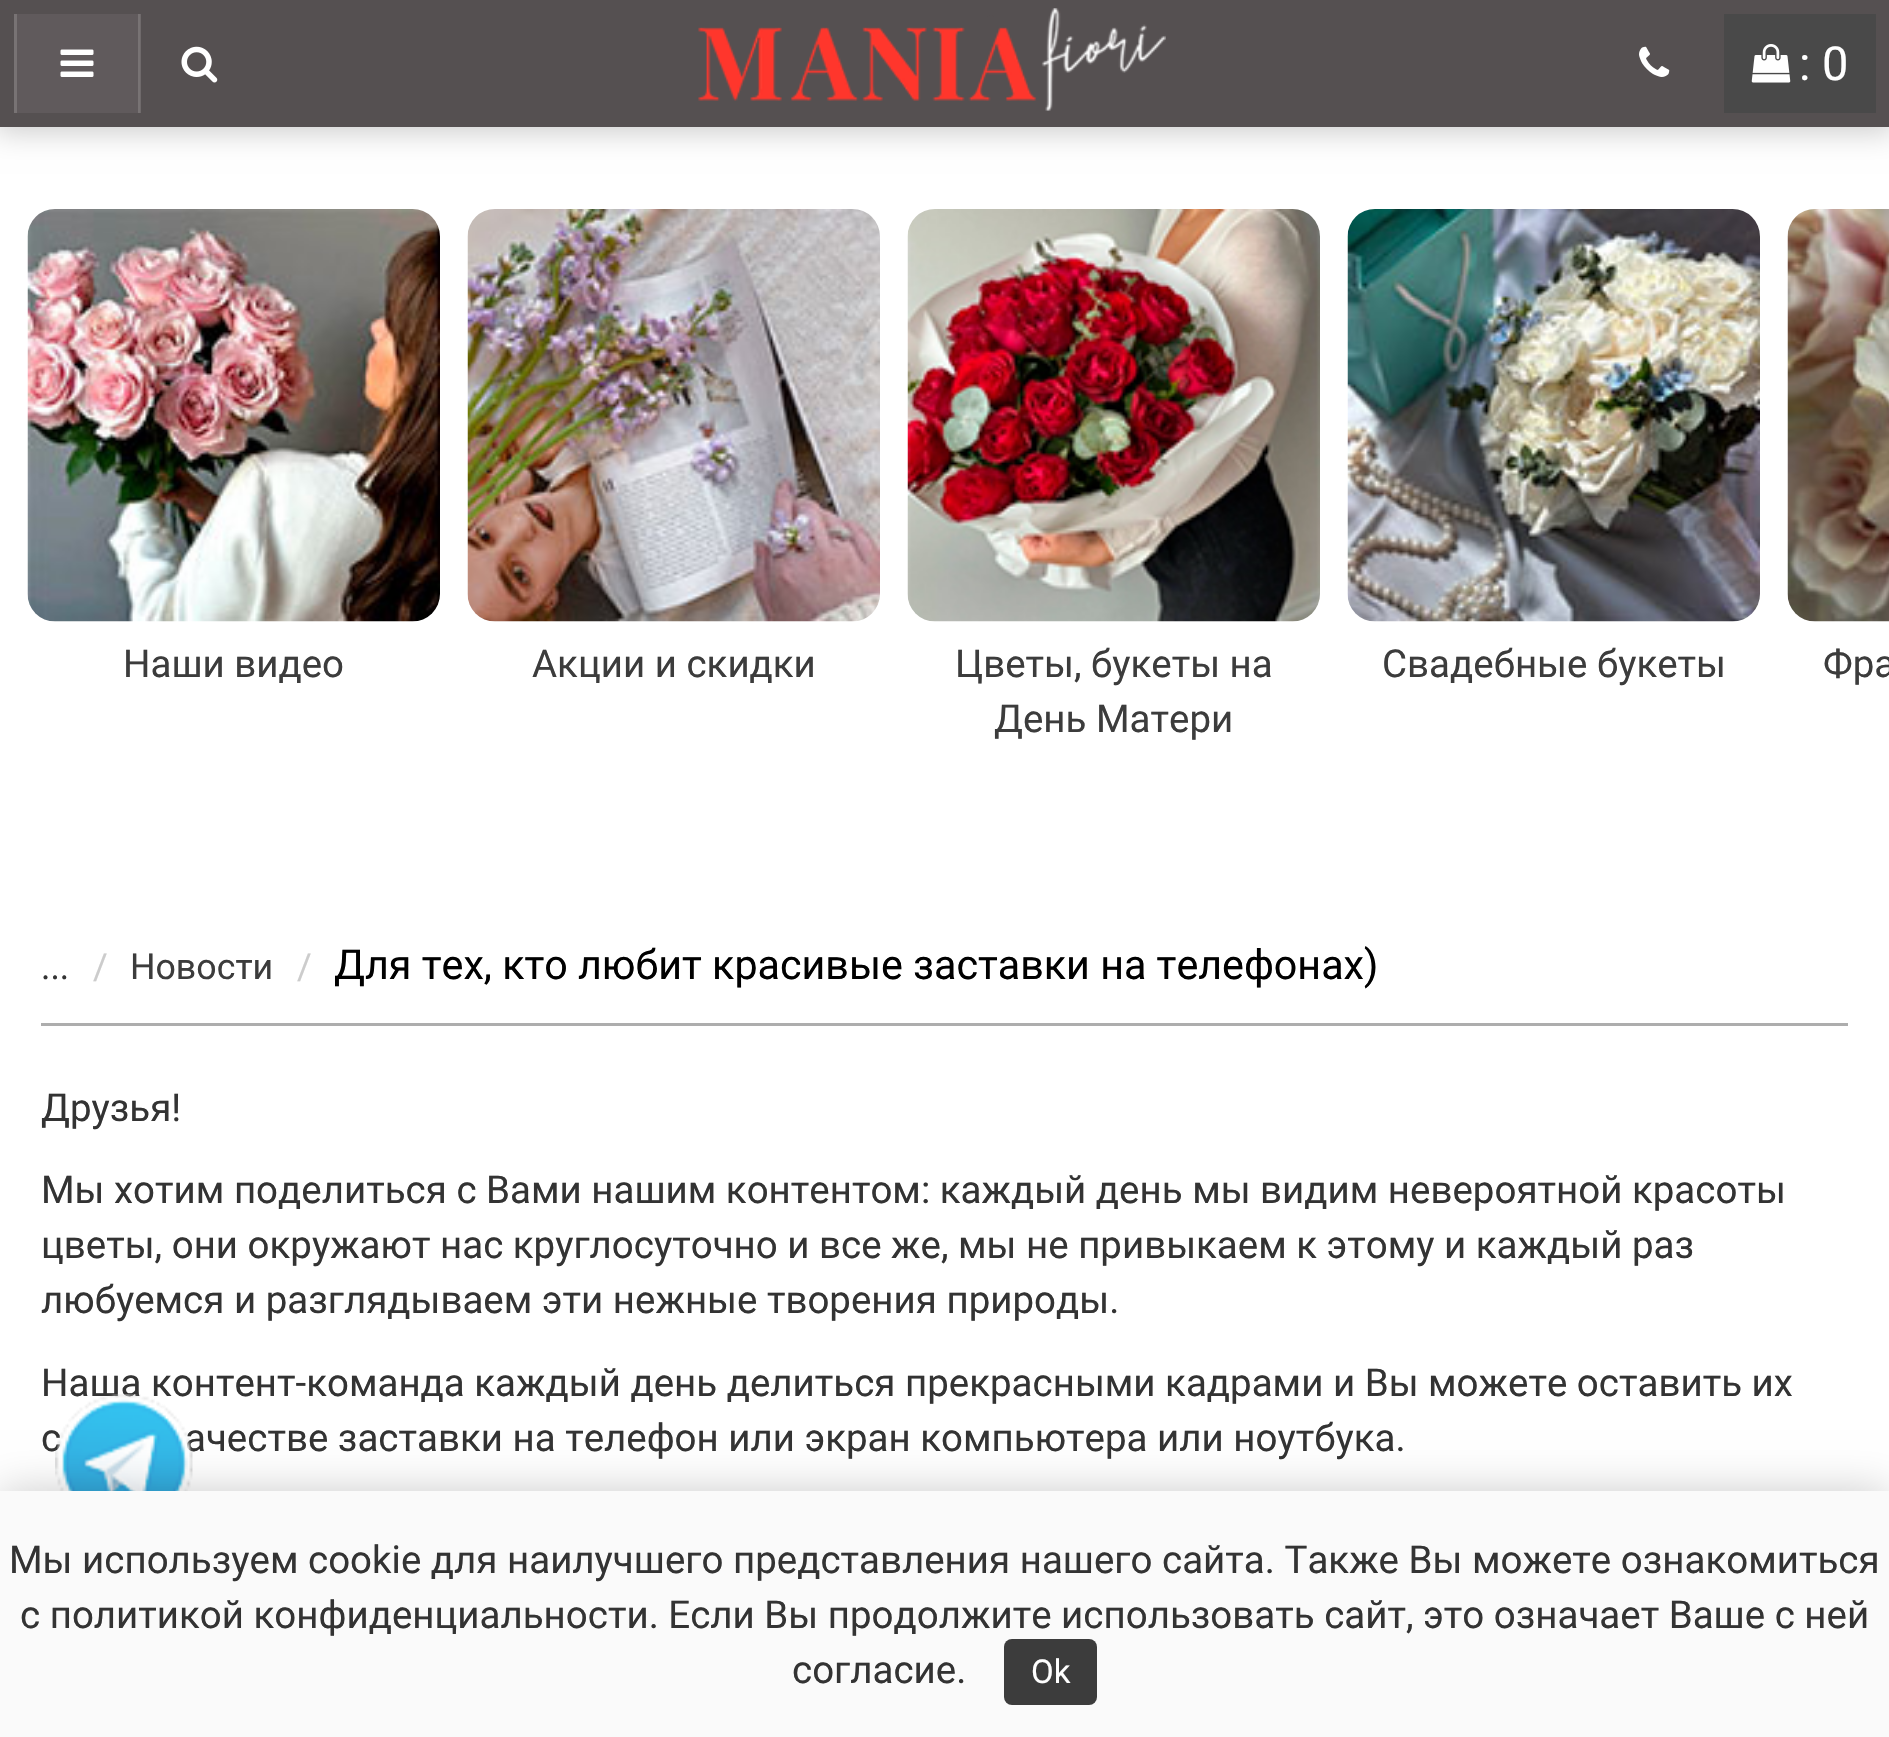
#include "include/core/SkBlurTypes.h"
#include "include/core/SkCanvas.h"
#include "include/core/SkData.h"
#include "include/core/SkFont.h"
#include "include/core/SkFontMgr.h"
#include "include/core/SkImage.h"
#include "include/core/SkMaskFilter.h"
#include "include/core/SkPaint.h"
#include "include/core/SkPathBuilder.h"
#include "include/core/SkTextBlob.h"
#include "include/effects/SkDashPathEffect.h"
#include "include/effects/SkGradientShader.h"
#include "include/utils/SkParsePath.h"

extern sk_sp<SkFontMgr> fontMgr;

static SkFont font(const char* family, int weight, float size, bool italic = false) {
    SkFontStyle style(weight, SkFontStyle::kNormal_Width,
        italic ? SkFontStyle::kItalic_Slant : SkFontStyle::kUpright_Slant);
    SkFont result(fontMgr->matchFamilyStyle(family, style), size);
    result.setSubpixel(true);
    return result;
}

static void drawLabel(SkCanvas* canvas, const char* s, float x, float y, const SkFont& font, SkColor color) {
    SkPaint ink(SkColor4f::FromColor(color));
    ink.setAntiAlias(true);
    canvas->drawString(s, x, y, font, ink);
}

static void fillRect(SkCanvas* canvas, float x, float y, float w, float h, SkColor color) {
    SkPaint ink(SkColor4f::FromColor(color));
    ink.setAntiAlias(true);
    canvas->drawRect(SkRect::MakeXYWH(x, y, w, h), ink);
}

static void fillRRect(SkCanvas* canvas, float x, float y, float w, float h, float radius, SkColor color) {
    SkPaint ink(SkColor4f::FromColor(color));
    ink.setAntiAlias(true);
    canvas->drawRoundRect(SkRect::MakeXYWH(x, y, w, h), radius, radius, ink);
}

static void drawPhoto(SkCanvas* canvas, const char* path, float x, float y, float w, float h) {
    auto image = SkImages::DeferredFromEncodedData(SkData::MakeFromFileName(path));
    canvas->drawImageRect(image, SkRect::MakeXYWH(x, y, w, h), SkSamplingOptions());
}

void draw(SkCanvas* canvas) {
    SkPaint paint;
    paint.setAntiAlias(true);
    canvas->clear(0xFFFFFFFF);
    paint.setColor(0x33000000);
    paint.setMaskFilter(SkMaskFilter::MakeBlur(kNormal_SkBlurStyle, 14));
    canvas->drawRect(SkRect::MakeXYWH(-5, -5, 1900, 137), paint);
    paint.setMaskFilter(nullptr);
    fillRect(canvas, 0, 0, 1889, 127, 0xFF555051);
    fillRect(canvas, 140, 14, 1, 99, 0xFF6F6A6B);
    fillRect(canvas, 17, 14, 121, 99, 0xFF605A5C);
    fillRect(canvas, 138, 14, 2, 99, 0xFF787374);
    fillRect(canvas, 14, 14, 3, 99, 0xFF787374);
    drawPhoto(canvas, "assets/img1.png", 60, 49, 34, 28);
    drawPhoto(canvas, "assets/img2.png", 181, 46, 37, 37);
    drawPhoto(canvas, "assets/img3.png", 698, 8, 468, 103);
    drawPhoto(canvas, "assets/img4.png", 1639, 46, 31, 31);
    fillRect(canvas, 1724, 14, 152, 99, 0xFF494949);
    drawPhoto(canvas, "assets/img5.png", 1751, 44, 40, 39);
    SkFont font1 = font("Roboto", 400, 47);
    drawLabel(canvas, ": 0", 1799, 80, font1, 0xFFFFFFFF);
    drawPhoto(canvas, "assets/img6.png", 27, 209, 413, 413);
    SkFont font2 = font("Roboto", 400, 38.5f);
    drawLabel(canvas, "Наши видео", 123, 677, font2, 0xFF3C3C3C);
    drawPhoto(canvas, "assets/img7.png", 467, 209, 413, 413);
    drawLabel(canvas, "Акции и скидки", 532, 677, font2, 0xFF3C3C3C);
    drawPhoto(canvas, "assets/img8.png", 907, 209, 413, 413);
    drawLabel(canvas, "Цветы, букеты на", 955, 677, font2, 0xFF3C3C3C);
    drawLabel(canvas, "День Матери", 994, 732, font2, 0xFF3C3C3C);
    drawPhoto(canvas, "assets/img9.png", 1347, 209, 413, 413);
    drawLabel(canvas, "Свадебные букеты", 1382, 677, font2, 0xFF3C3C3C);
    drawPhoto(canvas, "assets/img10.png", 1787, 209, 102, 413);
    drawLabel(canvas, "Фра", 1823, 677, font2, 0xFF3C3C3C);
    fillRect(canvas, 41, 1023, 1807, 3, 0xFFADADAD);
    SkFont font3 = font("Roboto", 400, 35.75f);
    drawLabel(canvas, "...", 41, 979, font3, 0xFF333333);
    drawLabel(canvas, "/", 93, 979, font3, 0xFFCCCCCC);
    drawLabel(canvas, "Новости", 130, 979, font3, 0xFF3C3C3C);
    drawLabel(canvas, "/", 297, 979, font3, 0xFFCCCCCC);
    SkFont font4 = font("Roboto", 400, 41.25f);
    drawLabel(canvas, "Для тех, кто любит красивые заставки на телефонах)", 334, 979, font4, 0xFF000000);
    drawLabel(canvas, "Друзья!", 41, 1121, font2, 0xFF333333);
    drawLabel(canvas, "Мы хотим поделиться с Вами нашим контентом: каждый день мы видим невероятной красоты", 41, 1203, font2, 0xFF333333);
    drawLabel(canvas, "цветы, они окружают нас круглосуточно и все же, мы не привыкаем к этому и каждый раз", 41, 1258, font2, 0xFF333333);
    drawLabel(canvas, "любуемся и разглядываем эти нежные творения природы.", 41, 1313, font2, 0xFF333333);
    drawLabel(canvas, "Наша контент-команда каждый день делиться прекрасными кадрами и Вы можете оставить их", 41, 1396, font2, 0xFF333333);
    drawLabel(canvas, "с", 41, 1451, font2, 0xFF333333);
    drawLabel(canvas, "ачестве заставки на телефон или экран компьютера или ноутбука.", 185, 1451, font2, 0xFF333333);
    drawPhoto(canvas, "assets/img11.png", 55, 1394, 138, 97);
    paint.setMaskFilter(SkMaskFilter::MakeBlur(kNormal_SkBlurStyle, 20.5f));
    canvas->drawRect(SkRect::MakeXYWH(0, 1491, 1889, 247), paint);
    paint.setMaskFilter(nullptr);
    fillRect(canvas, 0, 1491, 1889, 246, 0xFFFAFAFA);
    drawLabel(canvas, "Мы используем cookie для наилучшего представления нашего сайта. Также Вы можете ознакомиться", 9, 1573, font2, 0xFF333333);
    drawLabel(canvas, "с политикой конфиденциальности. Если Вы продолжите использовать сайт, это означает Ваше с ней", 20, 1628, font2, 0xFF333333);
    drawLabel(canvas, "согласие.", 792, 1683, font2, 0xFF333333);
    fillRRect(canvas, 1004, 1639, 93, 66, 8, 0xFF3C3C3C);
    SkFont font5 = font("Roboto", 400, 33);
    drawLabel(canvas, "Ok", 1031, 1683, font5, 0xFFFFFFFF);
}
